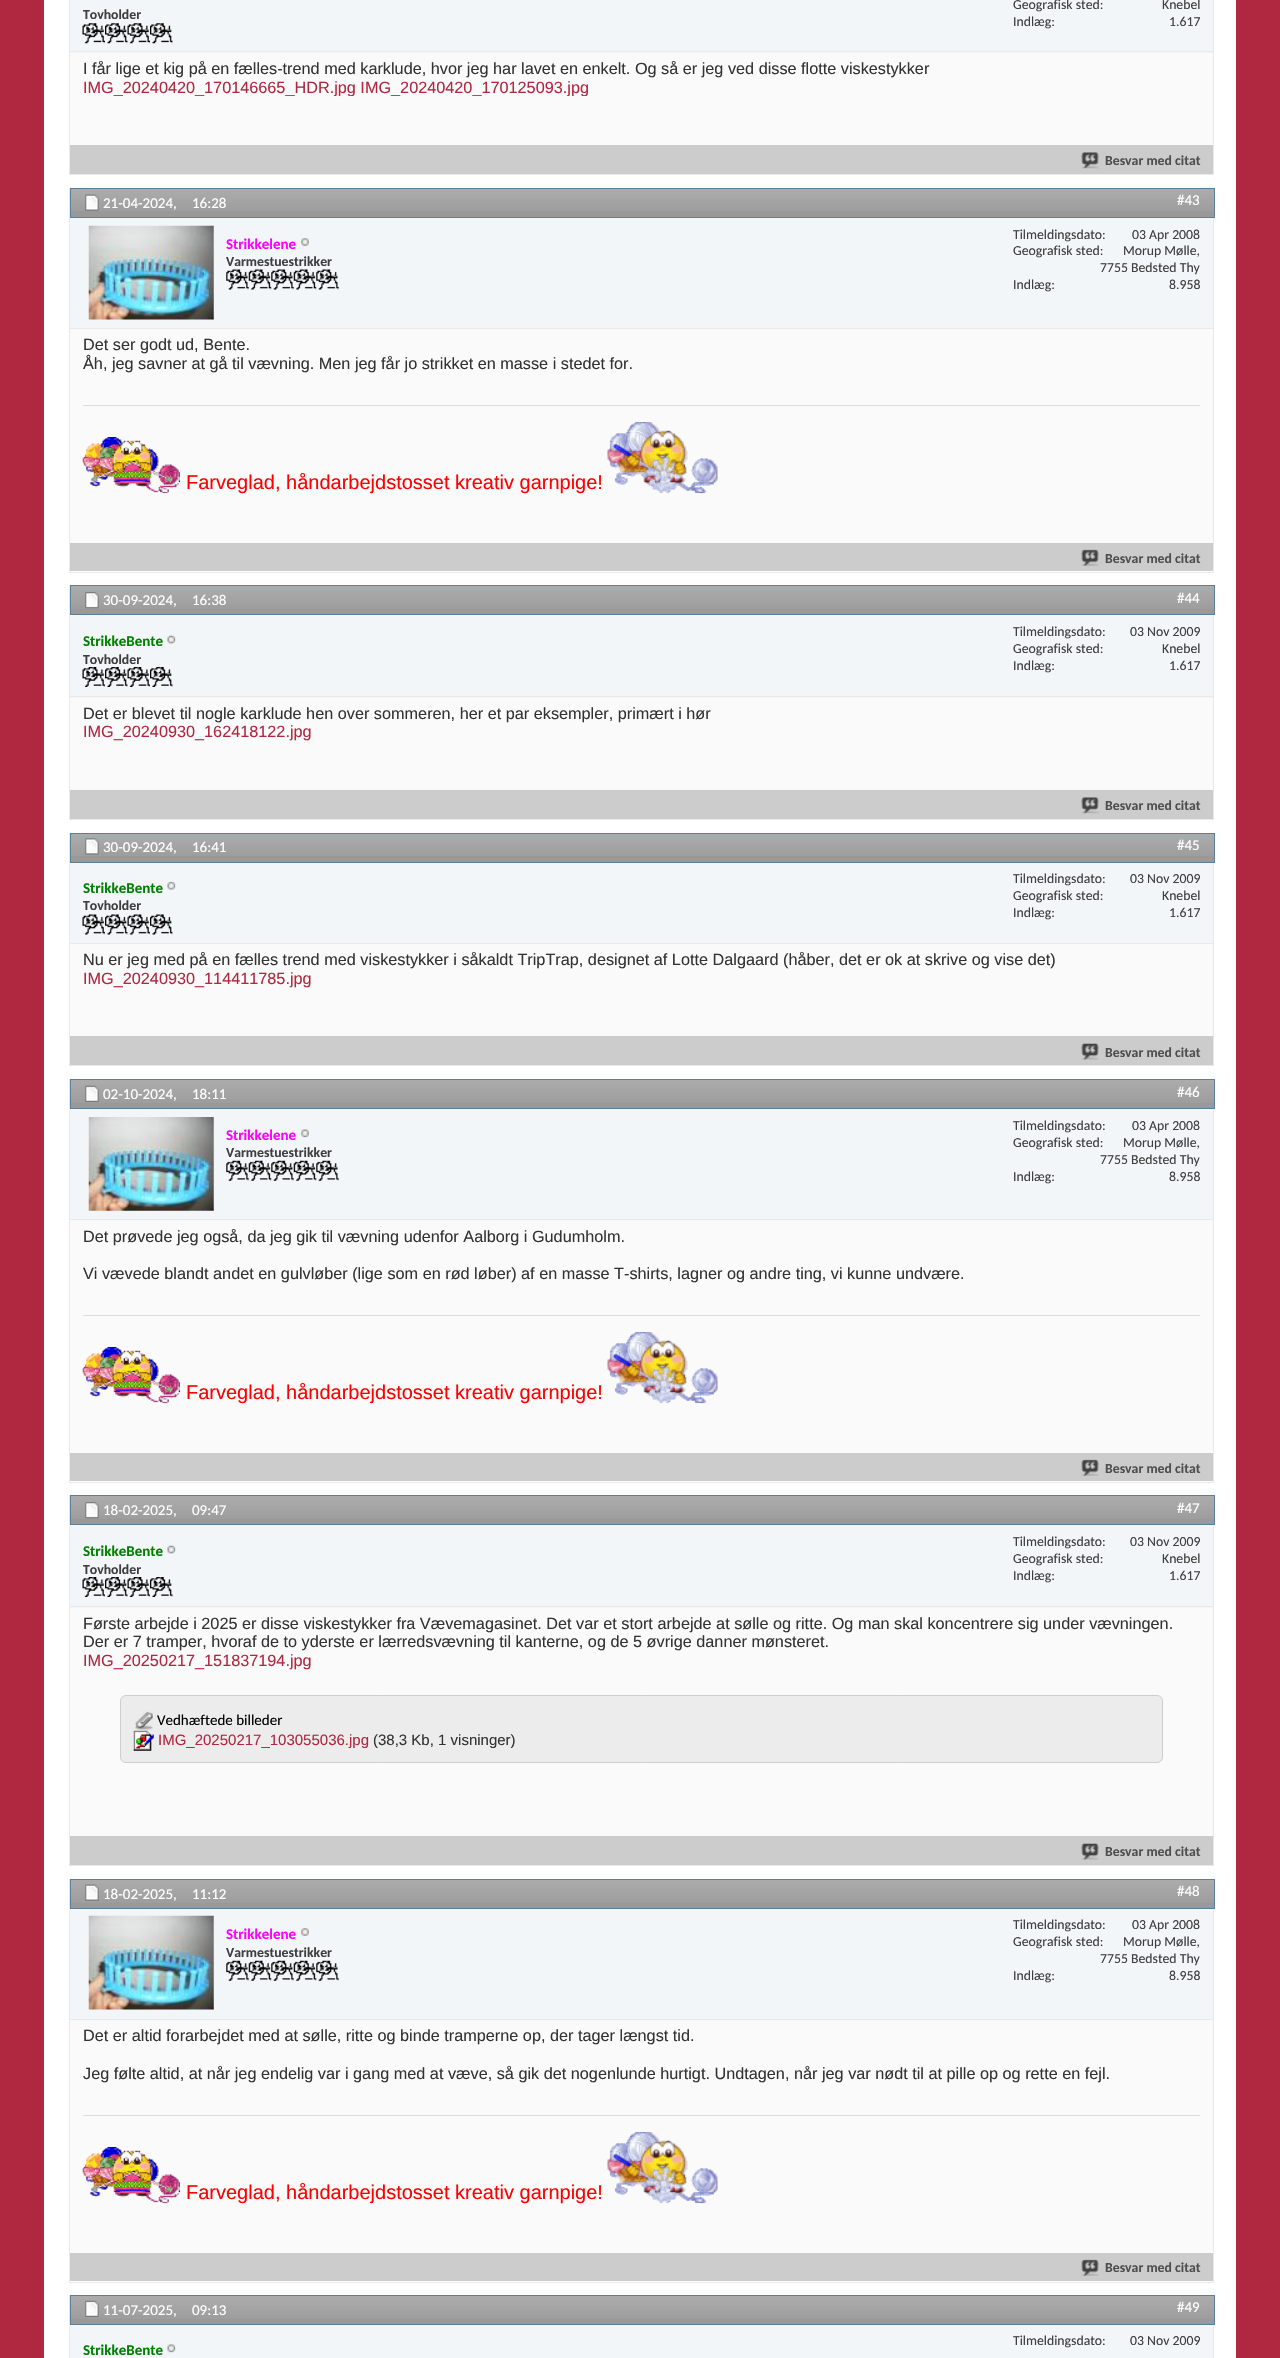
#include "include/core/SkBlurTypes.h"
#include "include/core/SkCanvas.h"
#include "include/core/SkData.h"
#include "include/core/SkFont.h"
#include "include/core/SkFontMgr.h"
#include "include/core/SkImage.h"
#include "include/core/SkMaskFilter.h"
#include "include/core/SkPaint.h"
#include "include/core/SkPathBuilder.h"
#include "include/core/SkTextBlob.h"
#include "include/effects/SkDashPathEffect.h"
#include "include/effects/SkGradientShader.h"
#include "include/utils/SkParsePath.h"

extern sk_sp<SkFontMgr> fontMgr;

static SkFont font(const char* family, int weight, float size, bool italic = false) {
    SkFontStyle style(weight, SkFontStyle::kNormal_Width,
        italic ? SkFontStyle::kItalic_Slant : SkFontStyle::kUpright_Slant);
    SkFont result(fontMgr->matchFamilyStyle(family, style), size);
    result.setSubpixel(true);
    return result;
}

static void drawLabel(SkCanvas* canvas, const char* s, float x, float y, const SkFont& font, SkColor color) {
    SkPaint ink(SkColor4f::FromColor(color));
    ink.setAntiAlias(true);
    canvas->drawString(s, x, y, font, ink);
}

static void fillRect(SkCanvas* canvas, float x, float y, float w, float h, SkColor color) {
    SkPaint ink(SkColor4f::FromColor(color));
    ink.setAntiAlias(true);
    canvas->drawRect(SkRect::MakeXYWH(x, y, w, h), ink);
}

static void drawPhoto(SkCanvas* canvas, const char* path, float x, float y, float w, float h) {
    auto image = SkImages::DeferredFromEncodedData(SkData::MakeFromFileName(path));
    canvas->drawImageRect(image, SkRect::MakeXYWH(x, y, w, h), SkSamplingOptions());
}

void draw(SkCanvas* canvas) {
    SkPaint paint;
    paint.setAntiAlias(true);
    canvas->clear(0xFFB02840);
    fillRect(canvas, 44, 0, 1192, 2358, 0xFFFFFFFF);
    paint.setStroke(true);
    paint.setStrokeWidth(1);
    paint.setColor(0xFFE9E9E9);
    canvas->drawRect(SkRect::MakeXYWH(69.5f, -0.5f, 1144, 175), paint);
    fillRect(canvas, 70, 0, 1143, 53, 0xFFF2F6F8);
    fillRect(canvas, 70, 51, 1143, 1, 0xFFE9E9E9);
    SkFont font1 = font("Carlito", 700, 13.75f);
    drawLabel(canvas, "Tovholder", 83, 19, font1, 0xFF3E3E3E);
    drawPhoto(canvas, "assets/img1.png", 82, 23, 23, 21);
    drawPhoto(canvas, "assets/img2.png", 105, 23, 23, 21);
    drawPhoto(canvas, "assets/img3.png", 127, 23, 23, 21);
    drawPhoto(canvas, "assets/img2.png", 150, 23, 23, 21);
    SkFont font2 = font("Carlito", 400, 13.75f);
    drawLabel(canvas, "Geografisk sted:", 1013, 9, font2, 0xFF3E3E3E);
    drawLabel(canvas, "Knebel", 1162, 9, font2, 0xFF3E3E3E);
    drawLabel(canvas, "Indlæg:", 1013, 26, font2, 0xFF3E3E3E);
    drawLabel(canvas, "1.617", 1169, 26, font2, 0xFF3E3E3E);
    fillRect(canvas, 70, 53, 1143, 92, 0xFFFAFAFA);
    SkFont font3 = font("Liberation Sans", 400, 16.25f);
    drawLabel(canvas, "I får lige et kig på en fælles-trend med karklude, hvor jeg har lavet en enkelt. Og så er jeg ved disse flotte viskestykker", 83, 74, font3, 0xFF333333);
    canvas->save();
    canvas->clipRect(SkRect::MakeXYWH(83, 59, 1117, 37));
    drawLabel(canvas, "IMG_20240420_170146665_HDR.jpg IMG_20240420_170125093.jpg", 83, 93, font3, 0xFFB02840);
    canvas->restore();
    fillRect(canvas, 70, 145, 1143, 29, 0xFFCCCCCC);
    drawPhoto(canvas, "assets/img4.png", 1081, 152, 18, 17);
    drawLabel(canvas, "Besvar med citat", 1105, 165, font1, 0xFF4E4E4E);
    canvas->drawRect(SkRect::MakeXYWH(69.5f, 188.5f, 1144, 384), paint);
    fillRect(canvas, 71, 189, 1143, 28, 0xFF999999);
    drawPhoto(canvas, "assets/img5.png", 71, 189, 1143, 22);
    paint.setColor(0xFF5A7F97);
    canvas->drawRect(SkRect::MakeXYWH(70.5f, 188.5f, 1144, 29), paint);
    drawPhoto(canvas, "assets/img6.png", 85, 194, 14, 17);
    SkFont font4 = font("Carlito", 400, 15);
    drawLabel(canvas, "21-04-2024,", 103, 208, font4, 0xFFFFFFFF);
    drawLabel(canvas, "16:28", 192, 208, font4, 0xFFFFFFFF);
    drawLabel(canvas, "#43", 1177, 205, font4, 0xFFFFFFFF);
    fillRect(canvas, 70, 218, 1143, 110, 0xFFF2F6F8);
    fillRect(canvas, 70, 328, 1143, 1, 0xFFE9E9E9);
    drawPhoto(canvas, "assets/img7.png", 88, 225, 126, 95);
    SkFont font5 = font("Carlito", 700, 15);
    drawLabel(canvas, "Strikkelene", 226, 249, font5, 0xFFFF00FF);
    drawPhoto(canvas, "assets/img8.png", 301, 238, 8, 8);
    drawLabel(canvas, "Varmestuestrikker", 226, 266, font1, 0xFF3E3E3E);
    drawPhoto(canvas, "assets/img9.png", 226, 269, 23, 21);
    drawPhoto(canvas, "assets/img10.png", 248, 269, 24, 21);
    drawPhoto(canvas, "assets/img11.png", 271, 269, 23, 21);
    drawPhoto(canvas, "assets/img10.png", 293, 269, 24, 21);
    drawPhoto(canvas, "assets/img11.png", 316, 269, 23, 21);
    drawLabel(canvas, "Tilmeldingsdato:", 1013, 239, font2, 0xFF3E3E3E);
    drawLabel(canvas, "03 Apr 2008", 1132, 239, font2, 0xFF3E3E3E);
    drawLabel(canvas, "Geografisk sted:", 1013, 255, font2, 0xFF3E3E3E);
    drawLabel(canvas, "Morup Mølle,", 1123, 255, font2, 0xFF3E3E3E);
    drawLabel(canvas, "7755 Bedsted Thy", 1100, 272, font2, 0xFF3E3E3E);
    drawLabel(canvas, "Indlæg:", 1013, 289, font2, 0xFF3E3E3E);
    drawLabel(canvas, "8.958", 1169, 289, font2, 0xFF3E3E3E);
    fillRect(canvas, 70, 329, 1143, 214, 0xFFFAFAFA);
    drawLabel(canvas, "Det ser godt ud, Bente.", 83, 350, font3, 0xFF333333);
    drawLabel(canvas, "Åh, jeg savner at gå til vævning. Men jeg får jo strikket en masse i stedet for.", 83, 369, font3, 0xFF333333);
    fillRect(canvas, 83, 405, 1117, 1, 0xFFDDDDDD);
    drawPhoto(canvas, "assets/img12.png", 82, 437, 98, 57);
    SkFont font6 = font("Liberation Sans", 400, 20);
    drawLabel(canvas, "Farveglad, håndarbejdstosset kreativ garnpige!", 186, 489, font6, 0xFFFF0000);
    drawPhoto(canvas, "assets/img13.png", 607, 422, 111, 72);
    fillRect(canvas, 70, 543, 1143, 28, 0xFFCCCCCC);
    drawPhoto(canvas, "assets/img14.png", 1081, 549, 18, 17);
    drawLabel(canvas, "Besvar med citat", 1105, 563, font1, 0xFF4E4E4E);
    paint.setColor(0xFFE9E9E9);
    canvas->drawRect(SkRect::MakeXYWH(69.5f, 585.5f, 1144, 234), paint);
    fillRect(canvas, 71, 586, 1143, 28, 0xFF999999);
    drawPhoto(canvas, "assets/img15.png", 71, 586, 1143, 23);
    paint.setColor(0xFF5A7F97);
    canvas->drawRect(SkRect::MakeXYWH(70.5f, 585.5f, 1144, 29), paint);
    drawPhoto(canvas, "assets/img16.png", 85, 592, 14, 17);
    drawLabel(canvas, "30-09-2024,", 103, 605, font4, 0xFFFFFFFF);
    drawLabel(canvas, "16:38", 192, 605, font4, 0xFFFFFFFF);
    drawLabel(canvas, "#44", 1177, 603, font4, 0xFFFFFFFF);
    fillRect(canvas, 70, 615, 1143, 83, 0xFFF2F6F8);
    fillRect(canvas, 70, 696, 1143, 1, 0xFFE9E9E9);
    drawLabel(canvas, "StrikkeBente", 83, 646, font5, 0xFF008000);
    drawPhoto(canvas, "assets/img17.png", 167, 635, 9, 9);
    drawLabel(canvas, "Tovholder", 83, 664, font1, 0xFF3E3E3E);
    drawPhoto(canvas, "assets/img18.png", 82, 667, 23, 20);
    drawPhoto(canvas, "assets/img19.png", 105, 667, 23, 20);
    drawPhoto(canvas, "assets/img20.png", 127, 667, 23, 20);
    drawPhoto(canvas, "assets/img19.png", 150, 667, 23, 20);
    drawLabel(canvas, "Tilmeldingsdato:", 1013, 636, font2, 0xFF3E3E3E);
    drawLabel(canvas, "03 Nov 2009", 1130, 636, font2, 0xFF3E3E3E);
    drawLabel(canvas, "Geografisk sted:", 1013, 653, font2, 0xFF3E3E3E);
    drawLabel(canvas, "Knebel", 1162, 653, font2, 0xFF3E3E3E);
    drawLabel(canvas, "Indlæg:", 1013, 670, font2, 0xFF3E3E3E);
    drawLabel(canvas, "1.617", 1169, 670, font2, 0xFF3E3E3E);
    fillRect(canvas, 70, 698, 1143, 92, 0xFFFAFAFA);
    drawLabel(canvas, "Det er blevet til nogle karklude hen over sommeren, her et par eksempler, primært i hør", 83, 719, font3, 0xFF333333);
    drawLabel(canvas, "IMG_20240930_162418122.jpg", 83, 737, font3, 0xFFB02840);
    fillRect(canvas, 70, 790, 1143, 29, 0xFFCCCCCC);
    drawPhoto(canvas, "assets/img4.png", 1081, 797, 18, 17);
    drawLabel(canvas, "Besvar med citat", 1105, 810, font1, 0xFF4E4E4E);
    paint.setColor(0xFFE9E9E9);
    canvas->drawRect(SkRect::MakeXYWH(69.5f, 833.5f, 1144, 232), paint);
    fillRect(canvas, 71, 834, 1143, 28, 0xFF999999);
    drawPhoto(canvas, "assets/img5.png", 71, 834, 1143, 22);
    paint.setColor(0xFF5A7F97);
    canvas->drawRect(SkRect::MakeXYWH(70.5f, 833.5f, 1144, 29), paint);
    drawPhoto(canvas, "assets/img21.png", 85, 838, 14, 17);
    drawLabel(canvas, "30-09-2024,", 103, 852, font4, 0xFFFFFFFF);
    drawLabel(canvas, "16:41", 192, 852, font4, 0xFFFFFFFF);
    drawLabel(canvas, "#45", 1177, 850, font4, 0xFFFFFFFF);
    fillRect(canvas, 70, 863, 1143, 80, 0xFFF2F6F8);
    fillRect(canvas, 70, 943, 1143, 1, 0xFFE9E9E9);
    drawLabel(canvas, "StrikkeBente", 83, 893, font5, 0xFF008000);
    drawPhoto(canvas, "assets/img22.png", 167, 881, 9, 9);
    drawLabel(canvas, "Tovholder", 83, 910, font1, 0xFF3E3E3E);
    drawPhoto(canvas, "assets/img23.png", 82, 914, 23, 21);
    drawPhoto(canvas, "assets/img24.png", 105, 914, 23, 21);
    drawPhoto(canvas, "assets/img25.png", 127, 914, 23, 21);
    drawPhoto(canvas, "assets/img24.png", 150, 914, 23, 21);
    drawLabel(canvas, "Tilmeldingsdato:", 1013, 883, font2, 0xFF3E3E3E);
    drawLabel(canvas, "03 Nov 2009", 1130, 883, font2, 0xFF3E3E3E);
    drawLabel(canvas, "Geografisk sted:", 1013, 900, font2, 0xFF3E3E3E);
    drawLabel(canvas, "Knebel", 1162, 900, font2, 0xFF3E3E3E);
    drawLabel(canvas, "Indlæg:", 1013, 917, font2, 0xFF3E3E3E);
    drawLabel(canvas, "1.617", 1169, 917, font2, 0xFF3E3E3E);
    fillRect(canvas, 70, 944, 1143, 92, 0xFFFAFAFA);
    drawLabel(canvas, "Nu er jeg med på en fælles trend med viskestykker i såkaldt TripTrap, designet af Lotte Dalgaard (håber, det er ok at skrive og vise det)", 83, 965, font3, 0xFF333333);
    drawLabel(canvas, "IMG_20240930_114411785.jpg", 83, 984, font3, 0xFFB02840);
    fillRect(canvas, 70, 1036, 1143, 29, 0xFFCCCCCC);
    drawPhoto(canvas, "assets/img26.png", 1081, 1043, 18, 17);
    drawLabel(canvas, "Besvar med citat", 1105, 1057, font1, 0xFF4E4E4E);
    paint.setColor(0xFFE9E9E9);
    canvas->drawRect(SkRect::MakeXYWH(69.5f, 1079.5f, 1144, 403), paint);
    fillRect(canvas, 71, 1080, 1143, 28, 0xFF999999);
    drawPhoto(canvas, "assets/img27.png", 71, 1080, 1143, 23);
    paint.setColor(0xFF5A7F97);
    canvas->drawRect(SkRect::MakeXYWH(70.5f, 1079.5f, 1144, 29), paint);
    drawPhoto(canvas, "assets/img28.png", 85, 1085, 14, 17);
    drawLabel(canvas, "02-10-2024,", 103, 1099, font4, 0xFFFFFFFF);
    drawLabel(canvas, "18:11", 192, 1099, font4, 0xFFFFFFFF);
    drawLabel(canvas, "#46", 1177, 1097, font4, 0xFFFFFFFF);
    fillRect(canvas, 70, 1109, 1143, 110, 0xFFF2F6F8);
    fillRect(canvas, 70, 1219, 1143, 1, 0xFFE9E9E9);
    drawPhoto(canvas, "assets/img29.png", 88, 1117, 126, 94);
    drawLabel(canvas, "Strikkelene", 226, 1140, font5, 0xFFFF00FF);
    drawPhoto(canvas, "assets/img30.png", 301, 1129, 8, 9);
    drawLabel(canvas, "Varmestuestrikker", 226, 1157, font1, 0xFF3E3E3E);
    drawPhoto(canvas, "assets/img31.png", 226, 1160, 23, 21);
    drawPhoto(canvas, "assets/img32.png", 248, 1160, 24, 21);
    drawPhoto(canvas, "assets/img33.png", 271, 1160, 23, 21);
    drawPhoto(canvas, "assets/img32.png", 293, 1160, 24, 21);
    drawPhoto(canvas, "assets/img33.png", 316, 1160, 23, 21);
    drawLabel(canvas, "Tilmeldingsdato:", 1013, 1130, font2, 0xFF3E3E3E);
    drawLabel(canvas, "03 Apr 2008", 1132, 1130, font2, 0xFF3E3E3E);
    drawLabel(canvas, "Geografisk sted:", 1013, 1147, font2, 0xFF3E3E3E);
    drawLabel(canvas, "Morup Mølle,", 1123, 1147, font2, 0xFF3E3E3E);
    drawLabel(canvas, "7755 Bedsted Thy", 1100, 1164, font2, 0xFF3E3E3E);
    drawLabel(canvas, "Indlæg:", 1013, 1181, font2, 0xFF3E3E3E);
    drawLabel(canvas, "8.958", 1169, 1181, font2, 0xFF3E3E3E);
    fillRect(canvas, 70, 1220, 1143, 233, 0xFFFAFAFA);
    drawLabel(canvas, "Det prøvede jeg også, da jeg gik til vævning udenfor Aalborg i Gudumholm.", 83, 1242, font3, 0xFF333333);
    drawLabel(canvas, "Vi vævede blandt andet en gulvløber (lige som en rød løber) af en masse T-shirts, lagner og andre ting, vi kunne undvære.", 83, 1279, font3, 0xFF333333);
    fillRect(canvas, 83, 1315, 1117, 1, 0xFFDDDDDD);
    drawPhoto(canvas, "assets/img12.png", 82, 1347, 98, 57);
    drawLabel(canvas, "Farveglad, håndarbejdstosset kreativ garnpige!", 186, 1399, font6, 0xFFFF0000);
    drawPhoto(canvas, "assets/img13.png", 607, 1332, 111, 72);
    fillRect(canvas, 70, 1453, 1143, 28, 0xFFCCCCCC);
    drawPhoto(canvas, "assets/img14.png", 1081, 1459, 18, 17);
    drawLabel(canvas, "Besvar med citat", 1105, 1473, font1, 0xFF4E4E4E);
    paint.setColor(0xFFE9E9E9);
    canvas->drawRect(SkRect::MakeXYWH(69.5f, 1495.5f, 1144, 370), paint);
    fillRect(canvas, 71, 1496, 1143, 28, 0xFF999999);
    drawPhoto(canvas, "assets/img15.png", 71, 1496, 1143, 23);
    paint.setColor(0xFF5A7F97);
    canvas->drawRect(SkRect::MakeXYWH(70.5f, 1495.5f, 1144, 29), paint);
    drawPhoto(canvas, "assets/img16.png", 85, 1502, 14, 17);
    drawLabel(canvas, "18-02-2025,", 103, 1515, font4, 0xFFFFFFFF);
    drawLabel(canvas, "09:47", 192, 1515, font4, 0xFFFFFFFF);
    drawLabel(canvas, "#47", 1177, 1513, font4, 0xFFFFFFFF);
    fillRect(canvas, 70, 1525, 1143, 83, 0xFFF2F6F8);
    fillRect(canvas, 70, 1606, 1143, 1, 0xFFE9E9E9);
    drawLabel(canvas, "StrikkeBente", 83, 1556, font5, 0xFF008000);
    drawPhoto(canvas, "assets/img17.png", 167, 1545, 9, 9);
    drawLabel(canvas, "Tovholder", 83, 1574, font1, 0xFF3E3E3E);
    drawPhoto(canvas, "assets/img18.png", 82, 1577, 23, 20);
    drawPhoto(canvas, "assets/img19.png", 105, 1577, 23, 20);
    drawPhoto(canvas, "assets/img20.png", 127, 1577, 23, 20);
    drawPhoto(canvas, "assets/img19.png", 150, 1577, 23, 20);
    drawLabel(canvas, "Tilmeldingsdato:", 1013, 1546, font2, 0xFF3E3E3E);
    drawLabel(canvas, "03 Nov 2009", 1130, 1546, font2, 0xFF3E3E3E);
    drawLabel(canvas, "Geografisk sted:", 1013, 1563, font2, 0xFF3E3E3E);
    drawLabel(canvas, "Knebel", 1162, 1563, font2, 0xFF3E3E3E);
    drawLabel(canvas, "Indlæg:", 1013, 1580, font2, 0xFF3E3E3E);
    drawLabel(canvas, "1.617", 1169, 1580, font2, 0xFF3E3E3E);
    fillRect(canvas, 70, 1608, 1143, 228, 0xFFFAFAFA);
    drawLabel(canvas, "Første arbejde i 2025 er disse viskestykker fra Vævemagasinet. Det var et stort arbejde at sølle og ritte. Og man skal koncentrere sig under vævningen.", 83, 1629, font3, 0xFF333333);
    drawLabel(canvas, "Der er 7 tramper, hvoraf de to yderste er lærredsvævning til kanterne, og de 5 øvrige danner mønsteret.", 83, 1647, font3, 0xFF333333);
    drawLabel(canvas, "IMG_20250217_151837194.jpg", 83, 1666, font3, 0xFFB02840);
    paint.setStroke(false);
    paint.setColor(0xFFECECEC);
    canvas->drawRoundRect(SkRect::MakeXYWH(120.5f, 1695.5f, 1042, 67), 5.5f, 5.5f, paint);
    paint.setStroke(true);
    paint.setColor(0xFFCECECE);
    canvas->drawRoundRect(SkRect::MakeXYWH(120.5f, 1695.5f, 1042, 67), 5.5f, 5.5f, paint);
    drawPhoto(canvas, "assets/img34.png", 135, 1711, 18, 19);
    drawLabel(canvas, "Vedhæftede billeder", 157, 1725, font4, 0xFF000000);
    drawPhoto(canvas, "assets/img35.png", 133, 1730, 21, 21);
    SkFont font7 = font("Liberation Sans", 400, 15);
    drawLabel(canvas, "IMG_20250217_103055036.jpg", 158, 1745, font7, 0xFFB02840);
    drawLabel(canvas, "(38,3 Kb, 1 visninger)", 373, 1745, font7, 0xFF333333);
    fillRect(canvas, 70, 1836, 1143, 29, 0xFFCCCCCC);
    drawPhoto(canvas, "assets/img26.png", 1081, 1843, 18, 17);
    drawLabel(canvas, "Besvar med citat", 1105, 1856, font1, 0xFF4E4E4E);
    paint.setColor(0xFFE9E9E9);
    canvas->drawRect(SkRect::MakeXYWH(69.5f, 1879.5f, 1144, 403), paint);
    fillRect(canvas, 71, 1880, 1143, 28, 0xFF999999);
    drawPhoto(canvas, "assets/img27.png", 71, 1880, 1143, 23);
    paint.setColor(0xFF5A7F97);
    canvas->drawRect(SkRect::MakeXYWH(70.5f, 1879.5f, 1144, 29), paint);
    drawPhoto(canvas, "assets/img36.png", 85, 1884, 14, 17);
    drawLabel(canvas, "18-02-2025,", 103, 1899, font4, 0xFFFFFFFF);
    drawLabel(canvas, "11:12", 192, 1899, font4, 0xFFFFFFFF);
    drawLabel(canvas, "#48", 1177, 1896, font4, 0xFFFFFFFF);
    fillRect(canvas, 70, 1909, 1143, 110, 0xFFF2F6F8);
    fillRect(canvas, 70, 2019, 1143, 1, 0xFFE9E9E9);
    drawPhoto(canvas, "assets/img7.png", 88, 1915, 126, 95);
    drawLabel(canvas, "Strikkelene", 226, 1939, font5, 0xFFFF00FF);
    drawPhoto(canvas, "assets/img8.png", 301, 1928, 8, 8);
    drawLabel(canvas, "Varmestuestrikker", 226, 1957, font1, 0xFF3E3E3E);
    drawPhoto(canvas, "assets/img31.png", 226, 1960, 23, 21);
    drawPhoto(canvas, "assets/img32.png", 248, 1960, 24, 21);
    drawPhoto(canvas, "assets/img33.png", 271, 1960, 23, 21);
    drawPhoto(canvas, "assets/img32.png", 293, 1960, 24, 21);
    drawPhoto(canvas, "assets/img33.png", 316, 1960, 23, 21);
    drawLabel(canvas, "Tilmeldingsdato:", 1013, 1929, font2, 0xFF3E3E3E);
    drawLabel(canvas, "03 Apr 2008", 1132, 1929, font2, 0xFF3E3E3E);
    drawLabel(canvas, "Geografisk sted:", 1013, 1946, font2, 0xFF3E3E3E);
    drawLabel(canvas, "Morup Mølle,", 1123, 1946, font2, 0xFF3E3E3E);
    drawLabel(canvas, "7755 Bedsted Thy", 1100, 1963, font2, 0xFF3E3E3E);
    drawLabel(canvas, "Indlæg:", 1013, 1980, font2, 0xFF3E3E3E);
    drawLabel(canvas, "8.958", 1169, 1980, font2, 0xFF3E3E3E);
    fillRect(canvas, 70, 2020, 1143, 233, 0xFFFAFAFA);
    drawLabel(canvas, "Det er altid forarbejdet med at sølle, ritte og binde tramperne op, der tager længst tid.", 83, 2041, font3, 0xFF333333);
    drawLabel(canvas, "Jeg følte altid, at når jeg endelig var i gang med at væve, så gik det nogenlunde hurtigt. Undtagen, når jeg var nødt til at pille op og rette en fejl.", 83, 2079, font3, 0xFF333333);
    fillRect(canvas, 83, 2115, 1117, 1, 0xFFDDDDDD);
    drawPhoto(canvas, "assets/img12.png", 82, 2147, 98, 57);
    drawLabel(canvas, "Farveglad, håndarbejdstosset kreativ garnpige!", 186, 2199, font6, 0xFFFF0000);
    drawPhoto(canvas, "assets/img13.png", 607, 2132, 111, 72);
    fillRect(canvas, 70, 2253, 1143, 28, 0xFFCCCCCC);
    drawPhoto(canvas, "assets/img14.png", 1081, 2259, 18, 17);
    drawLabel(canvas, "Besvar med citat", 1105, 2272, font1, 0xFF4E4E4E);
    paint.setColor(0xFFE9E9E9);
    canvas->drawRect(SkRect::MakeXYWH(69.5f, 2295.5f, 1144, 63), paint);
    fillRect(canvas, 71, 2296, 1143, 28, 0xFF999999);
    drawPhoto(canvas, "assets/img15.png", 71, 2296, 1143, 23);
    paint.setColor(0xFF5A7F97);
    canvas->drawRect(SkRect::MakeXYWH(70.5f, 2295.5f, 1144, 29), paint);
    drawPhoto(canvas, "assets/img37.png", 85, 2300, 14, 17);
    drawLabel(canvas, "11-07-2025,", 103, 2315, font4, 0xFFFFFFFF);
    drawLabel(canvas, "09:13", 192, 2315, font4, 0xFFFFFFFF);
    drawLabel(canvas, "#49", 1177, 2312, font4, 0xFFFFFFFF);
    fillRect(canvas, 70, 2325, 1143, 33, 0xFFF2F6F8);
    drawLabel(canvas, "Tilmeldingsdato:", 1013, 2345, font2, 0xFF3E3E3E);
    drawLabel(canvas, "03 Nov 2009", 1130, 2345, font2, 0xFF3E3E3E);
    drawLabel(canvas, "StrikkeBente", 83, 2355, font5, 0xFF008000);
    drawPhoto(canvas, "assets/img38.png", 167, 2344, 9, 9);
}
